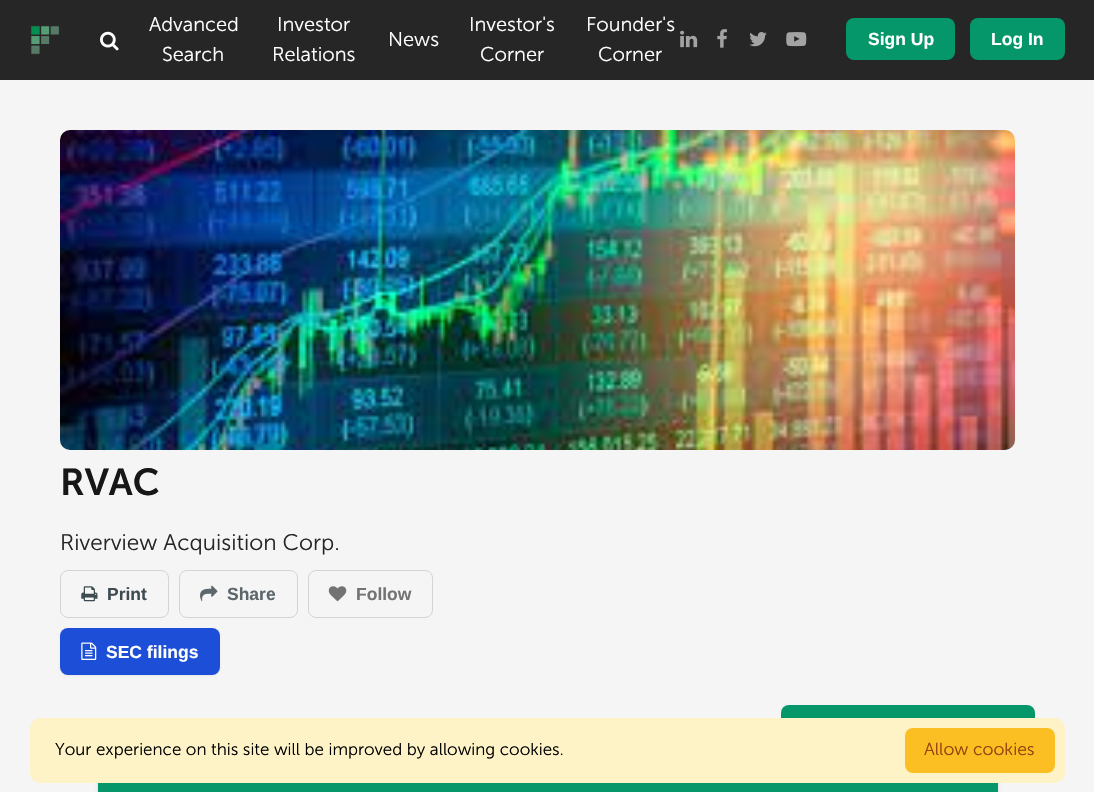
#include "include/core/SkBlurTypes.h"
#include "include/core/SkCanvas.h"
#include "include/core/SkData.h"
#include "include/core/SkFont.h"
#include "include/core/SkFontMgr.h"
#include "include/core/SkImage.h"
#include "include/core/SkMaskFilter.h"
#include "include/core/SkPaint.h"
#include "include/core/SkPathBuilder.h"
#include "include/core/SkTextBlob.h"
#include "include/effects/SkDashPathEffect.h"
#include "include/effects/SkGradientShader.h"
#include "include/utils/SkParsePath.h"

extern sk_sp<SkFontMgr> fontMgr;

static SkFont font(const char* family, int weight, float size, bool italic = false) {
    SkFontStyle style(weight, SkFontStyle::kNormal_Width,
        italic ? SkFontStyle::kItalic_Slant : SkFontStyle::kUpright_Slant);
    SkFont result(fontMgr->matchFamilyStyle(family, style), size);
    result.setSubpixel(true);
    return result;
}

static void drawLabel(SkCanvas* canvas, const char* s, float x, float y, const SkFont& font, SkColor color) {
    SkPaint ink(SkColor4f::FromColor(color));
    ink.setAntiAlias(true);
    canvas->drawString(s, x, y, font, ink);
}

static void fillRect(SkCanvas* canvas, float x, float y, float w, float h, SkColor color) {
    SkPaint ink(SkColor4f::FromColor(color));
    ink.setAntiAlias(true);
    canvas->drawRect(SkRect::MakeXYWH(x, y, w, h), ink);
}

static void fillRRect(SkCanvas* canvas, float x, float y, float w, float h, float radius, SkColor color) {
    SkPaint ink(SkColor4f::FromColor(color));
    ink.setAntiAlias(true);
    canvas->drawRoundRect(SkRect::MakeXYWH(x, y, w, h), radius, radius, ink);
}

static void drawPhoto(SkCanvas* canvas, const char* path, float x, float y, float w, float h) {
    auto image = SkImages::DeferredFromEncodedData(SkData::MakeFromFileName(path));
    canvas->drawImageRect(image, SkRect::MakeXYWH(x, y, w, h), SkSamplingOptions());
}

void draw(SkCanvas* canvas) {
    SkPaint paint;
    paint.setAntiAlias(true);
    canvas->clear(0xFFF5F5F5);
    fillRect(canvas, 0, 0, 1094, 80, 0xFF262626);
    drawPhoto(canvas, "assets/img1.png", 31, 25, 29, 30);
    drawPhoto(canvas, "assets/img2.png", 100, 31, 19, 20);
    SkFont font1 = font("Museo Sans", 300, 20);
    drawLabel(canvas, "Advanced", 149, 31, font1, 0xFFFFFFFF);
    drawLabel(canvas, "Search", 162, 61, font1, 0xFFFFFFFF);
    drawLabel(canvas, "Investor", 277, 31, font1, 0xFFFFFFFF);
    drawLabel(canvas, "Relations", 272, 61, font1, 0xFFFFFFFF);
    drawLabel(canvas, "News", 388, 46, font1, 0xFFFFFFFF);
    drawLabel(canvas, "Investor's", 469, 31, font1, 0xFFFFFFFF);
    drawLabel(canvas, "Corner", 480, 61, font1, 0xFFFFFFFF);
    drawLabel(canvas, "Founder's", 586, 31, font1, 0xFFFFFFFF);
    drawLabel(canvas, "Corner", 598, 61, font1, 0xFFFFFFFF);
    drawPhoto(canvas, "assets/img3.png", 680, 30, 18, 18);
    drawPhoto(canvas, "assets/img4.png", 717, 29, 10, 19);
    drawPhoto(canvas, "assets/img5.png", 749, 32, 18, 15);
    drawPhoto(canvas, "assets/img6.png", 786, 32, 21, 15);
    fillRRect(canvas, 846, 18, 109, 42, 8, 0xFF059669);
    SkFont font2 = font("Liberation Sans", 700, 17.5f);
    drawLabel(canvas, "Sign Up", 868, 45, font2, 0xFFFFFFFF);
    fillRRect(canvas, 970, 18, 95, 42, 8, 0xFF059669);
    drawLabel(canvas, "Log In", 991, 45, font2, 0xFFFFFFFF);
    drawPhoto(canvas, "assets/img7.png", 60, 130, 955, 320);
    SkFont font3 = font("Museo Sans", 600, 37.5f);
    drawLabel(canvas, "RVAC", 60, 495, font3, 0xFF171717);
    SkFont font4 = font("Museo Sans", 300, 22.5f);
    drawLabel(canvas, "Riverview Acquisition Corp.", 60, 550, font4, 0xFF262626);
    paint.setStroke(true);
    paint.setStrokeWidth(1);
    paint.setColor(0xFFD4D4D4);
    canvas->drawRoundRect(SkRect::MakeXYWH(60.5f, 570.5f, 108, 47), 7.5f, 7.5f, paint);
    drawPhoto(canvas, "assets/img8.png", 81, 586, 17, 16);
    drawLabel(canvas, "Print", 107, 600, font2, 0xFF3E4B51);
    canvas->drawRoundRect(SkRect::MakeXYWH(179.5f, 570.5f, 118, 47), 7.5f, 7.5f, paint);
    drawPhoto(canvas, "assets/img9.png", 200, 585, 18, 17);
    drawLabel(canvas, "Share", 227, 600, font2, 0xFF5C666B);
    canvas->drawRoundRect(SkRect::MakeXYWH(308.5f, 570.5f, 124, 47), 7.5f, 7.5f, paint);
    drawPhoto(canvas, "assets/img10.png", 328, 586, 19, 16);
    drawLabel(canvas, "Follow", 356, 600, font2, 0xFF737373);
    paint.setStroke(false);
    paint.setColor(0x0D000000);
    paint.setMaskFilter(SkMaskFilter::MakeBlur(kNormal_SkBlurStyle, 1));
    canvas->drawRoundRect(SkRect::MakeXYWH(60, 629, 160, 47), 8, 8, paint);
    paint.setMaskFilter(nullptr);
    fillRRect(canvas, 60, 628, 160, 47, 8, 0xFF1D4ED8);
    drawPhoto(canvas, "assets/img11.png", 81, 642, 16, 18);
    drawLabel(canvas, "SEC filings", 106, 658, font2, 0xFFFFFFFF);
    fillRRect(canvas, 781, 705, 254, 48, 8, 0xFF059669);
    paint.setColor(0x1A000000);
    paint.setMaskFilter(SkMaskFilter::MakeBlur(kNormal_SkBlurStyle, 2));
    canvas->drawRoundRect(SkRect::MakeXYWH(98, 774, 900, 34), 10, 10, paint);
    paint.setMaskFilter(nullptr);
    fillRect(canvas, 98, 783, 900, 9, 0xFF059669);
    fillRRect(canvas, 30, 718, 1035, 65, 10, 0xFFFEF3C7);
    SkFont font5 = font("Museo Sans", 300, 17);
    drawLabel(canvas, "Your experience on this site will be improved by allowing cookies.", 55, 755, font5, 0xFF000000);
    fillRRect(canvas, 905, 728, 150, 45, 8, 0xFFFBBF24);
    SkFont font6 = font("Museo Sans", 300, 17.5f);
    drawLabel(canvas, "Allow cookies", 924, 755, font6, 0xFF92400E);
}
